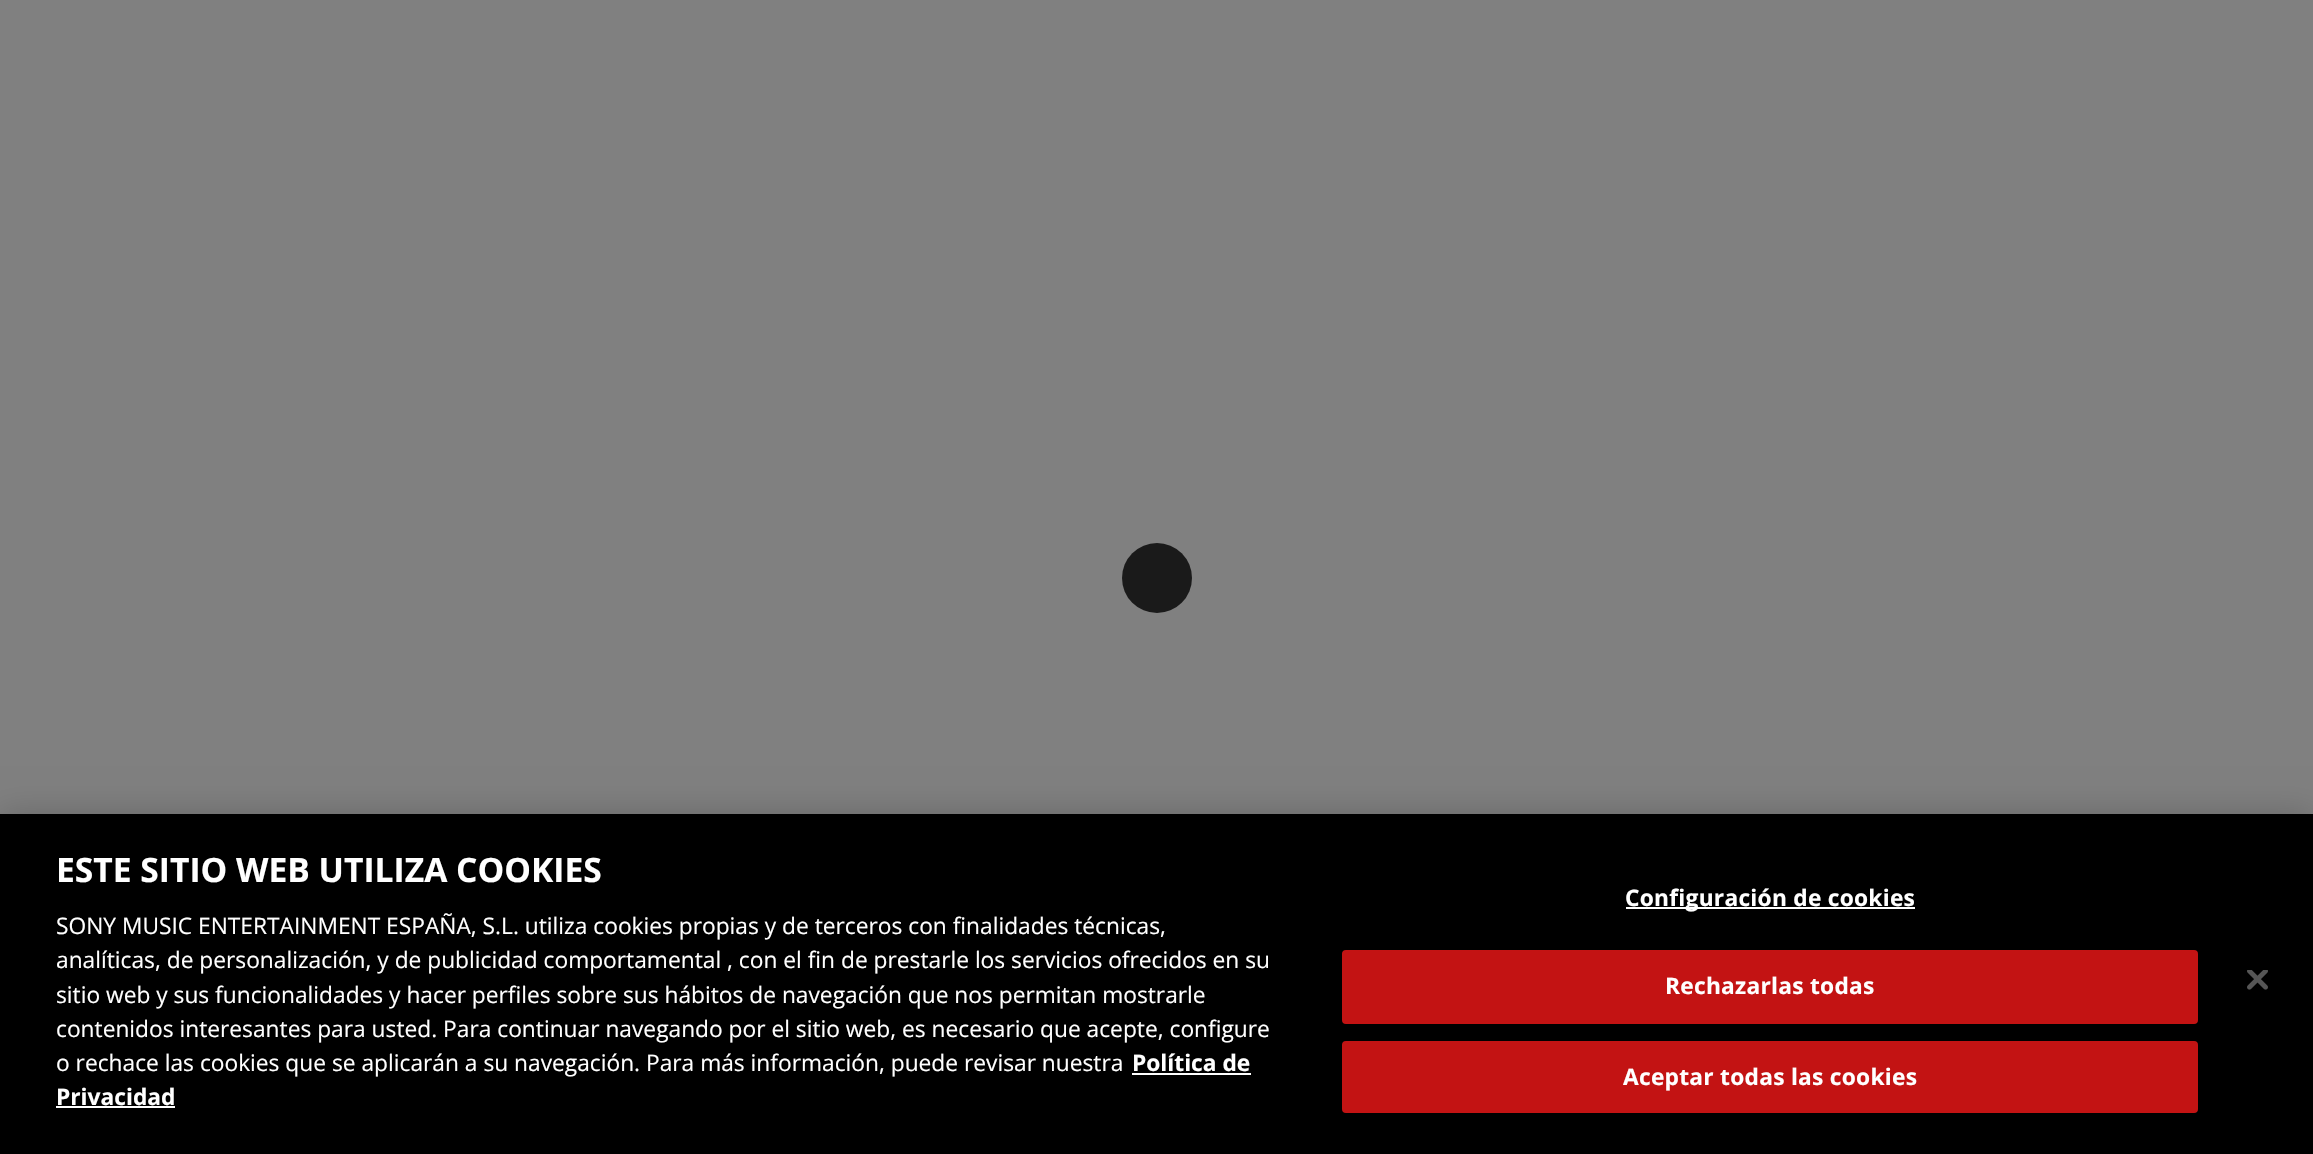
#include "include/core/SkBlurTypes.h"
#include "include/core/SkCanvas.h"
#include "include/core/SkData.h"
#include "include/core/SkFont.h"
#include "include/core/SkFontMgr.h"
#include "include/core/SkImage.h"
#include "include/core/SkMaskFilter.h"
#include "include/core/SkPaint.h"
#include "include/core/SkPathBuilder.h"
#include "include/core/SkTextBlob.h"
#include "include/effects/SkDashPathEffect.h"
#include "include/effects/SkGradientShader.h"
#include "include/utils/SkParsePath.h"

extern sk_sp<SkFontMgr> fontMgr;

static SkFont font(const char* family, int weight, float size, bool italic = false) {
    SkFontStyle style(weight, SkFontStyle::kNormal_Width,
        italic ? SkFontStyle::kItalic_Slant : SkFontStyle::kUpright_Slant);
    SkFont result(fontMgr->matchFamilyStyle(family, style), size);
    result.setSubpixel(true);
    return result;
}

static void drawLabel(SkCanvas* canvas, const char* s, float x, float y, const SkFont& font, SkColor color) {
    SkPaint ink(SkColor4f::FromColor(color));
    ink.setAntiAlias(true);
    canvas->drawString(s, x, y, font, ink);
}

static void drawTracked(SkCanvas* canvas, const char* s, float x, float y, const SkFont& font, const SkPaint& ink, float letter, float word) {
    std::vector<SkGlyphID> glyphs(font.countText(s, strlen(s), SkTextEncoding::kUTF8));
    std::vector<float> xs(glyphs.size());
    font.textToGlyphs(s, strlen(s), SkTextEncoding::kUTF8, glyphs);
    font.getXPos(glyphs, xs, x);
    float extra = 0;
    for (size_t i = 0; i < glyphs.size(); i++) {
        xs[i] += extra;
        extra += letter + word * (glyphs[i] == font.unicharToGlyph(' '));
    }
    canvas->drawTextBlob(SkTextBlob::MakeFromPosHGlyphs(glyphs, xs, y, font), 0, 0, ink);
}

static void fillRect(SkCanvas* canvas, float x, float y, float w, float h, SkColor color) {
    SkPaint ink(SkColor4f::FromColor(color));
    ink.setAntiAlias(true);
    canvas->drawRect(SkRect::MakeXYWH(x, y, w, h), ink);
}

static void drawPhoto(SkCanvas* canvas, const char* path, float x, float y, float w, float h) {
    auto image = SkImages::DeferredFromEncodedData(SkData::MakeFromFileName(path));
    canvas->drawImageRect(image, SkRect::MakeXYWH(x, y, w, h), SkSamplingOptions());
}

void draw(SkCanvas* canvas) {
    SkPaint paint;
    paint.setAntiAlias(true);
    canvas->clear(0xFF808080);
    paint.setColor(0xFF1A1A1A);
    canvas->drawCircle(1157, 578, 35, paint);
    paint.setColor(0x33000000);
    paint.setMaskFilter(SkMaskFilter::MakeBlur(kNormal_SkBlurStyle, 16));
    canvas->drawRect(SkRect::MakeXYWH(0, 814, 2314, 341), paint);
    paint.setMaskFilter(nullptr);
    fillRect(canvas, 0, 814, 2313, 340, 0xFF000000);
    SkFont font1 = font("Open Sans", 700, 33.6f);
    drawLabel(canvas, "ESTE SITIO WEB UTILIZA COOKIES", 56, 882, font1, 0xFFFFFFFF);
    SkFont font2 = font("Open Sans", 400, 22.75f);
    drawLabel(canvas, "SONY MUSIC ENTERTAINMENT ESPAÑA, S.L. utiliza cookies propias y de terceros con finalidades técnicas,", 56, 934, font2, 0xFFFFFFFF);
    drawLabel(canvas, "analíticas, de personalización, y de publicidad comportamental , con el fin de prestarle los servicios ofrecidos en su", 56, 968, font2, 0xFFFFFFFF);
    drawLabel(canvas, "sitio web y sus funcionalidades y hacer perfiles sobre sus hábitos de navegación que nos permitan mostrarle", 56, 1003, font2, 0xFFFFFFFF);
    drawLabel(canvas, "contenidos interesantes para usted. Para continuar navegando por el sitio web, es necesario que acepte, configure", 56, 1037, font2, 0xFFFFFFFF);
    drawLabel(canvas, "o rechace las cookies que se aplicarán a su navegación. Para más información, puede revisar nuestra", 56, 1071, font2, 0xFFFFFFFF);
    SkFont font3 = font("Open Sans", 700, 22.75f);
    drawLabel(canvas, "Política de", 1132, 1071, font3, 0xFFFFFFFF);
    fillRect(canvas, 1132, 1073, 119, 2, 0xFFFFFFFF);
    drawLabel(canvas, "Privacidad", 56, 1105, font3, 0xFFFFFFFF);
    fillRect(canvas, 56, 1106, 119, 2, 0xFFFFFFFF);
    fillRect(canvas, 1626, 907, 289, 2, 0xFFFFFFFF);
    paint.setColor(0xFFFFFFFF);
    drawTracked(canvas, "Configuración de cookies", 1625, 906, font3, paint, 0.25f, 0);
    paint.setColor(0xFFC31313);
    canvas->drawRoundRect(SkRect::MakeXYWH(1343, 951, 854, 72), 3, 3, paint);
    paint.setStroke(true);
    paint.setStrokeWidth(2);
    canvas->drawRoundRect(SkRect::MakeXYWH(1343, 951, 854, 72), 3, 3, paint);
    paint.setStroke(false);
    paint.setColor(0xFFFFFFFF);
    drawTracked(canvas, "Rechazarlas todas", 1665, 994, font3, paint, 0.25f, 0);
    paint.setColor(0xFFC31313);
    canvas->drawRoundRect(SkRect::MakeXYWH(1343, 1042, 854, 70), 3, 3, paint);
    paint.setStroke(true);
    canvas->drawRoundRect(SkRect::MakeXYWH(1343, 1042, 854, 70), 3, 3, paint);
    paint.setStroke(false);
    paint.setColor(0xFFFFFFFF);
    drawTracked(canvas, "Aceptar todas las cookies", 1623, 1085, font3, paint, 0.25f, 0);
    drawPhoto(canvas, "assets/img1.png", 2247, 970, 21, 20);
}
